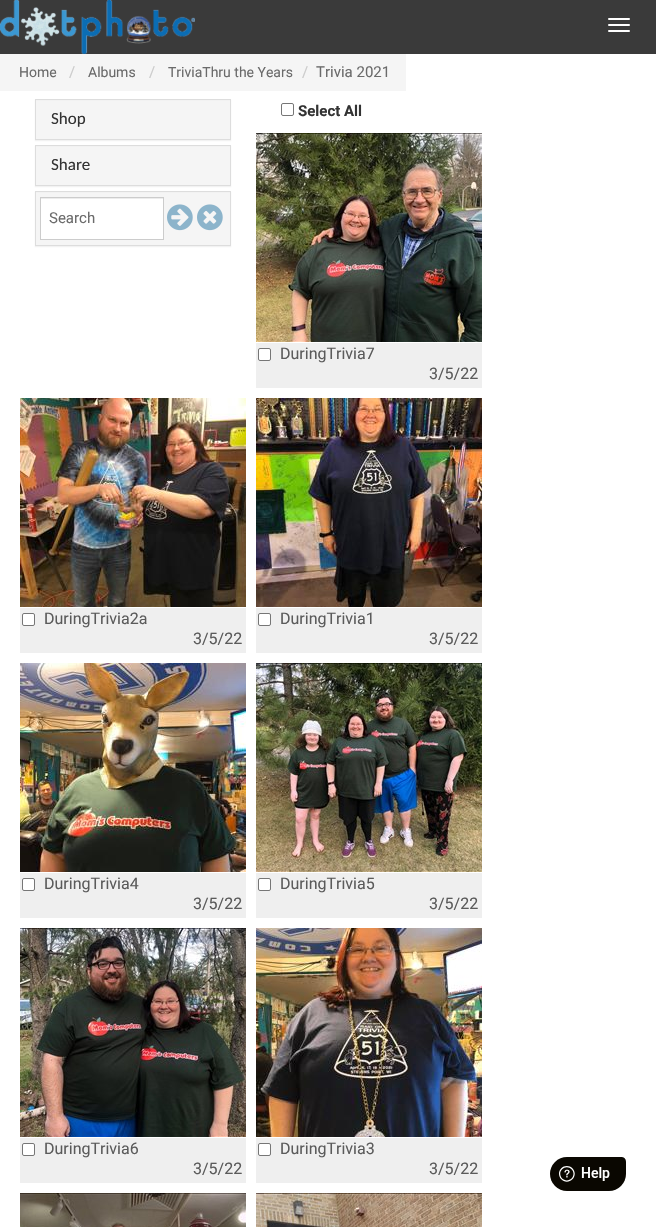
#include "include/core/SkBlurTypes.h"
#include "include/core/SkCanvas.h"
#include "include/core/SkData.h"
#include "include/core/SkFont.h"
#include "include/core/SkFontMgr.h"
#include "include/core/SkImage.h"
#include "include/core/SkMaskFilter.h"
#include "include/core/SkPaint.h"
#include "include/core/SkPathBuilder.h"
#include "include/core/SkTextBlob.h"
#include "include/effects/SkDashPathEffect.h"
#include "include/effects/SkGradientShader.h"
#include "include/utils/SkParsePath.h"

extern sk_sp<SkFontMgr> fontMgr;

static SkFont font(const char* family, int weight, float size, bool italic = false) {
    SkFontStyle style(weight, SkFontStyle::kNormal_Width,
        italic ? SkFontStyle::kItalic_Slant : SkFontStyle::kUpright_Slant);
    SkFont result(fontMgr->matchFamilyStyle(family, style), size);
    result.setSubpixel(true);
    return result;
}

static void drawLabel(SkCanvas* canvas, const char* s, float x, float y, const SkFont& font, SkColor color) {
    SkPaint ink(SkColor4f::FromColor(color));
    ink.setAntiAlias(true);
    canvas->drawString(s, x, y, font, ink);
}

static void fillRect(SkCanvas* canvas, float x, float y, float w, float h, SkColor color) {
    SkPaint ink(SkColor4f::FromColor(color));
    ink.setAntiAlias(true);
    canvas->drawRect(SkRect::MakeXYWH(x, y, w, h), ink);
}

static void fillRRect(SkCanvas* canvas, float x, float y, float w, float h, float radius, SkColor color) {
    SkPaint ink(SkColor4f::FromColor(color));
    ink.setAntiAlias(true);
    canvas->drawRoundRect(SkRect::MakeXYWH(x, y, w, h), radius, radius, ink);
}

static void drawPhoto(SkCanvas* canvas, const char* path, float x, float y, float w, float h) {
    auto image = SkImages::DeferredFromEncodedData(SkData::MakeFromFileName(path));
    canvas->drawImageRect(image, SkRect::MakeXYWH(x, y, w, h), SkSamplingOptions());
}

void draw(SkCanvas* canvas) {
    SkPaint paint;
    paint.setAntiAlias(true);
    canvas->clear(0xFFFFFFFF);
    fillRect(canvas, 0, 0, 656, 54, 0xFF3A3A3A);
    drawPhoto(canvas, "assets/img1.png", 0, 0, 195, 54);
    fillRRect(canvas, 608, 18, 22, 2, 1, 0xFFFFFFFF);
    fillRRect(canvas, 608, 24, 22, 2, 1, 0xFFFFFFFF);
    fillRRect(canvas, 608, 30, 22, 2, 1, 0xFFFFFFFF);
    fillRect(canvas, 0, 54, 406, 37, 0xFFF5F5F5);
    SkFont font1 = font("Roboto", 400, 14);
    drawLabel(canvas, "Home", 19, 77, font1, 0xFF6B6B6B);
    SkFont font2 = font("Roboto", 400, 15);
    drawLabel(canvas, "/", 69, 77, font2, 0xFFCCCCCC);
    drawLabel(canvas, "Albums", 88, 77, font1, 0xFF6B6B6B);
    drawLabel(canvas, "/", 149, 77, font2, 0xFFCCCCCC);
    drawLabel(canvas, "TriviaThru the Years", 168, 77, font1, 0xFF6B6B6B);
    drawLabel(canvas, "/", 302, 77, font2, 0xFFCCCCCC);
    drawLabel(canvas, "Trivia 2021", 316, 77, font2, 0xFF6B6B6B);
    paint.setStroke(true);
    paint.setStrokeWidth(1);
    paint.setColor(0xFF767676);
    canvas->drawRoundRect(SkRect::MakeXYWH(281.5f, 103.5f, 12, 12), 1.5f, 1.5f, paint);
    SkFont font3 = font("Roboto", 700, 15);
    drawLabel(canvas, "Select All", 298, 116, font3, 0xFF333333);
    paint.setStroke(false);
    paint.setColor(0x0D000000);
    paint.setMaskFilter(SkMaskFilter::MakeBlur(kNormal_SkBlurStyle, 0.5f));
    canvas->drawRect(SkRect::MakeXYWH(35, 100, 196, 41), paint);
    paint.setMaskFilter(nullptr);
    paint.setStroke(true);
    paint.setColor(0xFFDDDDDD);
    canvas->drawRect(SkRect::MakeXYWH(35.5f, 99.5f, 195, 40), paint);
    fillRect(canvas, 36, 101, 194, 38, 0xFFF5F5F5);
    SkFont font4 = font("Carlito", 400, 17);
    drawLabel(canvas, "Shop", 51, 124, font4, 0xFF333333);
    paint.setStroke(false);
    paint.setColor(0x0D000000);
    paint.setMaskFilter(SkMaskFilter::MakeBlur(kNormal_SkBlurStyle, 0.5f));
    canvas->drawRect(SkRect::MakeXYWH(35, 146, 196, 41), paint);
    paint.setMaskFilter(nullptr);
    paint.setStroke(true);
    paint.setColor(0xFFDDDDDD);
    canvas->drawRect(SkRect::MakeXYWH(35.5f, 145.5f, 195, 40), paint);
    fillRect(canvas, 36, 147, 194, 38, 0xFFF5F5F5);
    drawLabel(canvas, "Share", 51, 170, font4, 0xFF333333);
    paint.setStroke(false);
    paint.setColor(0x0D000000);
    paint.setMaskFilter(SkMaskFilter::MakeBlur(kNormal_SkBlurStyle, 0.5f));
    canvas->drawRect(SkRect::MakeXYWH(35, 192, 196, 55), paint);
    paint.setMaskFilter(nullptr);
    paint.setStroke(true);
    paint.setColor(0xFFDDDDDD);
    canvas->drawRect(SkRect::MakeXYWH(35.5f, 191.5f, 195, 54), paint);
    fillRect(canvas, 36, 193, 194, 52, 0xFFF5F5F5);
    fillRect(canvas, 41, 199, 122, 40, 0xFFFFFFFF);
    fillRect(canvas, 41, 198, 122, 1, 0xFFECECEC);
    paint.setColor(0xFFCCCCCC);
    canvas->drawRect(SkRect::MakeXYWH(40.5f, 197.5f, 123, 42), paint);
    drawLabel(canvas, "Search", 49, 223, font2, 0xFF6B6B6B);
    drawPhoto(canvas, "assets/img2.png", 167, 204, 26, 27);
    drawPhoto(canvas, "assets/img3.png", 197, 204, 26, 27);
    drawPhoto(canvas, "assets/img4.png", 256, 133, 226, 209);
    fillRect(canvas, 256, 343, 226, 45, 0xFFEFEFEF);
    paint.setStroke(false);
    paint.setColor(0xFFFFFFFF);
    canvas->drawRoundRect(SkRect::MakeXYWH(258.5f, 348.5f, 12, 12), 1.5f, 1.5f, paint);
    paint.setStroke(true);
    paint.setColor(0xFF767676);
    canvas->drawRoundRect(SkRect::MakeXYWH(258.5f, 348.5f, 12, 12), 1.5f, 1.5f, paint);
    SkFont font5 = font("Roboto", 400, 16);
    drawLabel(canvas, "DuringTrivia7", 280, 359, font5, 0xFF5B5B5B);
    drawLabel(canvas, "3/5/22", 429, 379, font5, 0xFF5B5B5B);
    drawPhoto(canvas, "assets/img5.png", 20, 398, 226, 209);
    fillRect(canvas, 20, 608, 226, 45, 0xFFEFEFEF);
    paint.setStroke(false);
    paint.setColor(0xFFFFFFFF);
    canvas->drawRoundRect(SkRect::MakeXYWH(22.5f, 613.5f, 12, 12), 1.5f, 1.5f, paint);
    paint.setStroke(true);
    paint.setColor(0xFF767676);
    canvas->drawRoundRect(SkRect::MakeXYWH(22.5f, 613.5f, 12, 12), 1.5f, 1.5f, paint);
    drawLabel(canvas, "DuringTrivia2a", 44, 624, font5, 0xFF5B5B5B);
    drawLabel(canvas, "3/5/22", 193, 644, font5, 0xFF5B5B5B);
    drawPhoto(canvas, "assets/img6.png", 256, 398, 226, 209);
    fillRect(canvas, 256, 608, 226, 45, 0xFFEFEFEF);
    paint.setStroke(false);
    paint.setColor(0xFFFFFFFF);
    canvas->drawRoundRect(SkRect::MakeXYWH(258.5f, 613.5f, 12, 12), 1.5f, 1.5f, paint);
    paint.setStroke(true);
    paint.setColor(0xFF767676);
    canvas->drawRoundRect(SkRect::MakeXYWH(258.5f, 613.5f, 12, 12), 1.5f, 1.5f, paint);
    drawLabel(canvas, "DuringTrivia1", 280, 624, font5, 0xFF5B5B5B);
    drawLabel(canvas, "3/5/22", 429, 644, font5, 0xFF5B5B5B);
    drawPhoto(canvas, "assets/img7.png", 20, 663, 226, 209);
    fillRect(canvas, 20, 873, 226, 45, 0xFFEFEFEF);
    paint.setStroke(false);
    paint.setColor(0xFFFFFFFF);
    canvas->drawRoundRect(SkRect::MakeXYWH(22.5f, 878.5f, 12, 12), 1.5f, 1.5f, paint);
    paint.setStroke(true);
    paint.setColor(0xFF767676);
    canvas->drawRoundRect(SkRect::MakeXYWH(22.5f, 878.5f, 12, 12), 1.5f, 1.5f, paint);
    drawLabel(canvas, "DuringTrivia4", 44, 889, font5, 0xFF5B5B5B);
    drawLabel(canvas, "3/5/22", 193, 909, font5, 0xFF5B5B5B);
    drawPhoto(canvas, "assets/img8.png", 256, 663, 226, 209);
    fillRect(canvas, 256, 873, 226, 45, 0xFFEFEFEF);
    paint.setStroke(false);
    paint.setColor(0xFFFFFFFF);
    canvas->drawRoundRect(SkRect::MakeXYWH(258.5f, 878.5f, 12, 12), 1.5f, 1.5f, paint);
    paint.setStroke(true);
    paint.setColor(0xFF767676);
    canvas->drawRoundRect(SkRect::MakeXYWH(258.5f, 878.5f, 12, 12), 1.5f, 1.5f, paint);
    drawLabel(canvas, "DuringTrivia5", 280, 889, font5, 0xFF5B5B5B);
    drawLabel(canvas, "3/5/22", 429, 909, font5, 0xFF5B5B5B);
    drawPhoto(canvas, "assets/img9.png", 20, 928, 226, 209);
    fillRect(canvas, 20, 1138, 226, 45, 0xFFEFEFEF);
    paint.setStroke(false);
    paint.setColor(0xFFFFFFFF);
    canvas->drawRoundRect(SkRect::MakeXYWH(22.5f, 1143.5f, 12, 12), 1.5f, 1.5f, paint);
    paint.setStroke(true);
    paint.setColor(0xFF767676);
    canvas->drawRoundRect(SkRect::MakeXYWH(22.5f, 1143.5f, 12, 12), 1.5f, 1.5f, paint);
    drawLabel(canvas, "DuringTrivia6", 44, 1154, font5, 0xFF5B5B5B);
    drawLabel(canvas, "3/5/22", 193, 1174, font5, 0xFF5B5B5B);
    drawPhoto(canvas, "assets/img10.png", 256, 928, 226, 209);
    fillRect(canvas, 256, 1138, 226, 45, 0xFFEFEFEF);
    paint.setStroke(false);
    paint.setColor(0xFFFFFFFF);
    canvas->drawRoundRect(SkRect::MakeXYWH(258.5f, 1143.5f, 12, 12), 1.5f, 1.5f, paint);
    paint.setStroke(true);
    paint.setColor(0xFF767676);
    canvas->drawRoundRect(SkRect::MakeXYWH(258.5f, 1143.5f, 12, 12), 1.5f, 1.5f, paint);
    drawLabel(canvas, "DuringTrivia3", 280, 1154, font5, 0xFF5B5B5B);
    drawLabel(canvas, "3/5/22", 429, 1174, font5, 0xFF5B5B5B);
    drawPhoto(canvas, "assets/img11.png", 20, 1193, 226, 34);
    drawPhoto(canvas, "assets/img12.png", 256, 1193, 226, 34);
    drawPhoto(canvas, "assets/img13.png", 550, 1157, 76, 34);
}
